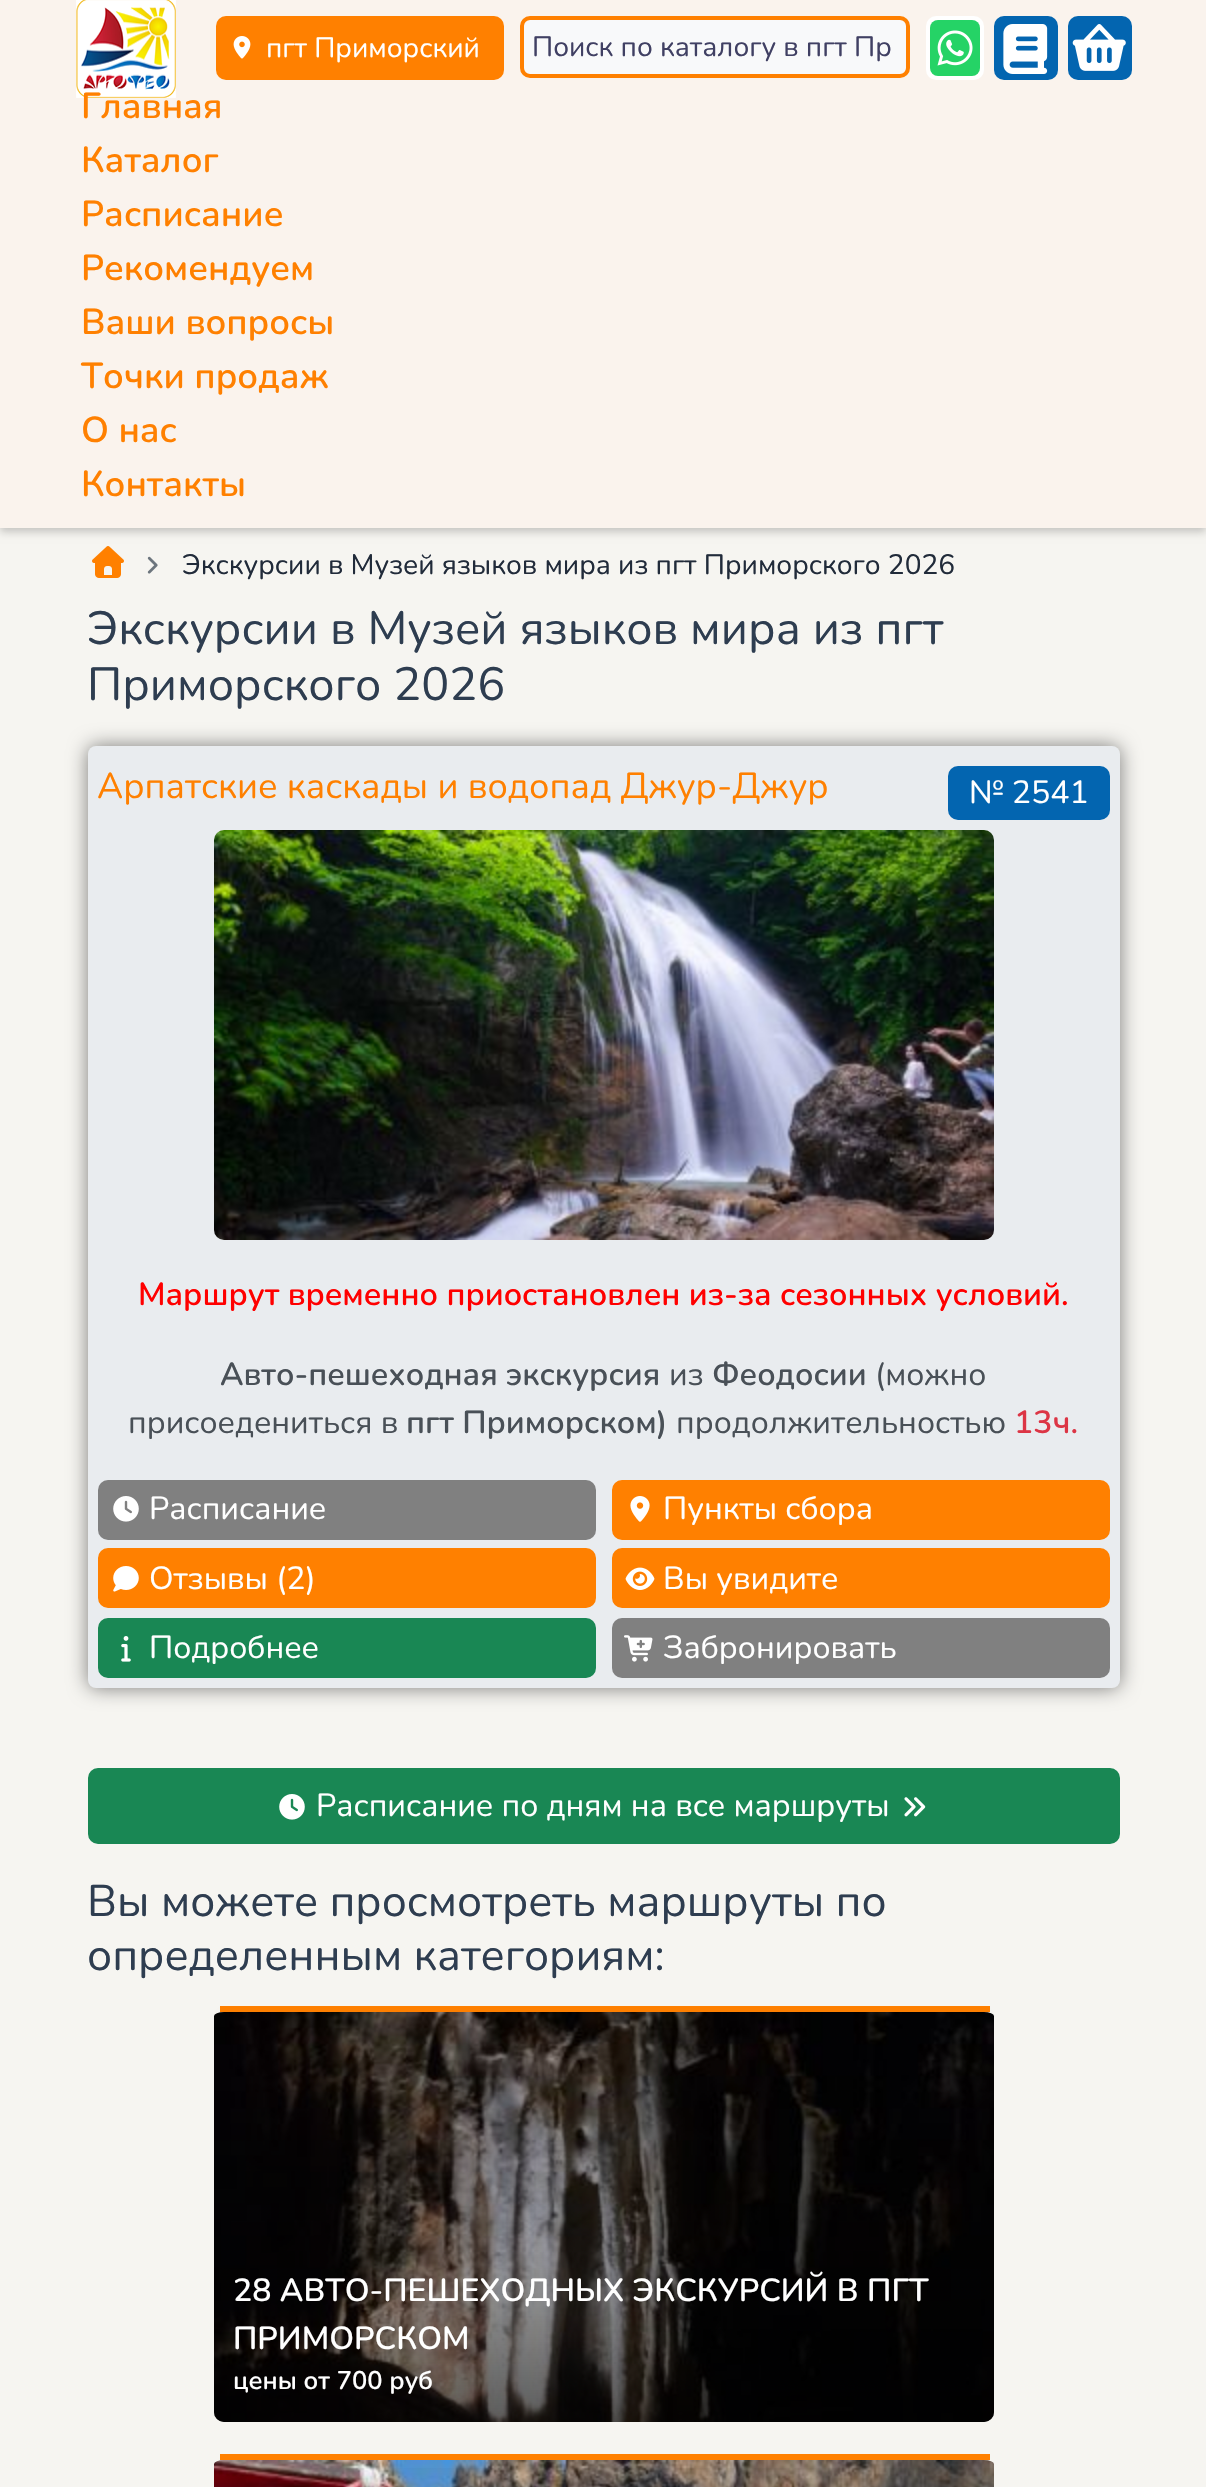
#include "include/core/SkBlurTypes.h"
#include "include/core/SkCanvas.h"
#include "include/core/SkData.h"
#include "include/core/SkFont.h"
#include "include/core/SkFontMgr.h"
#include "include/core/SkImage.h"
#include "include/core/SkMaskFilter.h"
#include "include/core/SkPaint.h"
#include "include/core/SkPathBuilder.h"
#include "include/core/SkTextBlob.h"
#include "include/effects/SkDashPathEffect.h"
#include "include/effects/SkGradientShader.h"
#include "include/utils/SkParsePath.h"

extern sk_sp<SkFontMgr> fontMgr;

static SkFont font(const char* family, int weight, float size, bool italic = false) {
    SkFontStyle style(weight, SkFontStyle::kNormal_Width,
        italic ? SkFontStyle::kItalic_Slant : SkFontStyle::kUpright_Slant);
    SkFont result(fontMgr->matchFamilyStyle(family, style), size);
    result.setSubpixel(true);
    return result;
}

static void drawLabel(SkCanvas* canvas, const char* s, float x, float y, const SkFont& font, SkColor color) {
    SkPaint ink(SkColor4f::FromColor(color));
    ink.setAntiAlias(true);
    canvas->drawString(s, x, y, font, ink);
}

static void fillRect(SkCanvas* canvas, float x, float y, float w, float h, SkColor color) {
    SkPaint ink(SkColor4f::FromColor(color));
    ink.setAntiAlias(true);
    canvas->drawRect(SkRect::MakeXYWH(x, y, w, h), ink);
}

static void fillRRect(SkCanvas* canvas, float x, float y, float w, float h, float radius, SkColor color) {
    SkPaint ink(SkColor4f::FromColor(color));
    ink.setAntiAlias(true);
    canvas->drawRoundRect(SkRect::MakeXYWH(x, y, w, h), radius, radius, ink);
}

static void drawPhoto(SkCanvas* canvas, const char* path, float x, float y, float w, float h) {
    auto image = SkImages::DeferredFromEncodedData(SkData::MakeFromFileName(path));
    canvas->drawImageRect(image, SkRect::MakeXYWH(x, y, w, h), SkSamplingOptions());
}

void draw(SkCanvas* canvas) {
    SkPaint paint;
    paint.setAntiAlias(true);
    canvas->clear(0xFFF6F5F1);
    paint.setColor(0x33000000);
    paint.setMaskFilter(SkMaskFilter::MakeBlur(kNormal_SkBlurStyle, 4));
    canvas->drawRect(SkRect::MakeXYWH(0, 4, 1206, 528), paint);
    paint.setMaskFilter(nullptr);
    fillRect(canvas, 0, 0, 1206, 528, 0xFFFAF3ED);
    drawPhoto(canvas, "assets/img1.png", 76, 0, 100, 98);
    fillRRect(canvas, 216, 16, 288, 64, 10, 0xFFFF8000);
    drawPhoto(canvas, "assets/img2.png", 233, 36, 18, 23);
    SkFont font1 = font("Nunito", 200, 28);
    drawLabel(canvas, "пгт Приморский", 266, 57, font1, 0xFFFFFFFF);
    paint.setColor(0xFFF8F9FA);
    canvas->drawRoundRect(SkRect::MakeXYWH(522, 18, 386, 58), 8, 8, paint);
    paint.setStroke(true);
    paint.setStrokeWidth(4);
    paint.setColor(0xFFFF8000);
    canvas->drawRoundRect(SkRect::MakeXYWH(522, 18, 386, 58), 8, 8, paint);
    drawLabel(canvas, "Поиск по каталогу в пгт Пр", 532, 56, font1, 0xFF404063);
    fillRRect(canvas, 926, 16, 58, 64, 10, 0xFFFFFFFF);
    fillRRect(canvas, 930, 20, 50, 56, 8, 0xFF25D366);
    drawPhoto(canvas, "assets/img3.png", 937, 30, 36, 36);
    fillRRect(canvas, 994, 16, 64, 64, 10, 0xFF0365B0);
    drawPhoto(canvas, "assets/img4.png", 1003, 24, 45, 50);
    fillRRect(canvas, 1068, 16, 64, 64, 10, 0xFF0365B0);
    drawPhoto(canvas, "assets/img5.png", 1072, 24, 54, 47);
    SkFont font2 = font("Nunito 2", 200, 36);
    drawLabel(canvas, "Главная", 81, 118, font2, 0xFFFF8000);
    drawLabel(canvas, "Каталог", 81, 172, font2, 0xFFFF8000);
    drawLabel(canvas, "Расписание", 81, 226, font2, 0xFFFF8000);
    drawLabel(canvas, "Рекомендуем", 81, 280, font2, 0xFFFF8000);
    drawLabel(canvas, "Ваши вопросы", 81, 334, font2, 0xFFFF8000);
    drawLabel(canvas, "Точки продаж", 81, 388, font2, 0xFFFF8000);
    drawLabel(canvas, "О нас", 81, 442, font2, 0xFFFF8000);
    drawLabel(canvas, "Контакты", 81, 496, font2, 0xFFFF8000);
    drawPhoto(canvas, "assets/img6.png", 92, 546, 32, 32);
    drawPhoto(canvas, "assets/img7.png", 147, 556, 11, 18);
    drawLabel(canvas, "Экскурсии в Музей языков мира из пгт Приморского 2026", 182, 574, font1, 0xFF212B3A);
    SkFont font3 = font("Nunito", 200, 46.6f);
    drawLabel(canvas, "Экскурсии в Музей языков мира из пгт", 87, 644, font3, 0xFF2E3D50);
    drawLabel(canvas, "Приморского 2026", 87, 700, font3, 0xFF2E3D50);
    paint.setStroke(false);
    paint.setColor(0x80000000);
    paint.setMaskFilter(SkMaskFilter::MakeBlur(kNormal_SkBlurStyle, 10));
    canvas->drawRoundRect(SkRect::MakeXYWH(88, 746, 1032, 942), 8, 8, paint);
    paint.setMaskFilter(nullptr);
    fillRRect(canvas, 88, 746, 1032, 942, 8, 0xFFE9ECEF);
    SkFont font4 = font("Nunito", 200, 36);
    drawLabel(canvas, "Арпатские каскады и водопад Джур-Джур", 97, 798, font4, 0xFFFF8000);
    fillRRect(canvas, 948, 766, 162, 54, 10, 0xFF0365B0);
    SkFont font5 = font("Nunito", 200, 32);
    drawLabel(canvas, "№ 2541", 969, 803, font5, 0xFFFFFFFF);
    drawPhoto(canvas, "assets/img8.png", 214, 830, 780, 410);
    SkFont font6 = font("Nunito 2", 200, 32);
    drawLabel(canvas, "Маршрут временно приостановлен из-за сезонных условий.", 138, 1305, font6, 0xFFFF0000);
    drawLabel(canvas, "Авто-пешеходная экскурсия", 220, 1385, font6, 0xFF495057);
    drawLabel(canvas, "из", 669, 1385, font5, 0xFF495057);
    drawLabel(canvas, "Феодосии", 712, 1385, font6, 0xFF495057);
    drawLabel(canvas, "(можно", 875, 1385, font5, 0xFF495057);
    drawLabel(canvas, "присоедениться в", 128, 1433, font5, 0xFF495057);
    drawLabel(canvas, "пгт Приморском)", 406, 1433, font6, 0xFF495057);
    drawLabel(canvas, "продолжительностью", 676, 1433, font5, 0xFF495057);
    drawLabel(canvas, "13ч.", 1014, 1433, font6, 0xFFDC3545);
    fillRRect(canvas, 98, 1480, 498, 60, 10, 0xFF808080);
    drawPhoto(canvas, "assets/img9.png", 113, 1496, 26, 26);
    drawLabel(canvas, "Расписание", 149, 1519, font5, 0xFFFFFFFF);
    paint.setColor(0xFFFF8000);
    canvas->drawRoundRect(SkRect::MakeXYWH(613, 1481, 496, 58), 9, 9, paint);
    paint.setStroke(true);
    paint.setStrokeWidth(2);
    canvas->drawRoundRect(SkRect::MakeXYWH(613, 1481, 496, 58), 9, 9, paint);
    drawPhoto(canvas, "assets/img10.png", 630, 1496, 20, 26);
    drawLabel(canvas, "Пункты сбора", 663, 1519, font5, 0xFFFFFFFF);
    paint.setStroke(false);
    canvas->drawRoundRect(SkRect::MakeXYWH(99, 1549, 496, 58), 9, 9, paint);
    paint.setStroke(true);
    canvas->drawRoundRect(SkRect::MakeXYWH(99, 1549, 496, 58), 9, 9, paint);
    drawPhoto(canvas, "assets/img11.png", 113, 1566, 26, 26);
    drawLabel(canvas, "Отзывы (2)", 149, 1589, font5, 0xFFFFFFFF);
    paint.setStroke(false);
    canvas->drawRoundRect(SkRect::MakeXYWH(613, 1549, 496, 58), 9, 9, paint);
    paint.setStroke(true);
    canvas->drawRoundRect(SkRect::MakeXYWH(613, 1549, 496, 58), 9, 9, paint);
    drawPhoto(canvas, "assets/img12.png", 625, 1567, 30, 23);
    drawLabel(canvas, "Вы увидите", 663, 1589, font5, 0xFFFFFFFF);
    paint.setStroke(false);
    paint.setColor(0xFF198754);
    canvas->drawRoundRect(SkRect::MakeXYWH(99, 1619, 496, 58), 9, 9, paint);
    paint.setStroke(true);
    canvas->drawRoundRect(SkRect::MakeXYWH(99, 1619, 496, 58), 9, 9, paint);
    drawPhoto(canvas, "assets/img13.png", 121, 1636, 10, 26);
    drawLabel(canvas, "Подробнее", 149, 1658, font5, 0xFFFFFFFF);
    fillRRect(canvas, 612, 1618, 498, 60, 10, 0xFF808080);
    drawPhoto(canvas, "assets/img14.png", 624, 1635, 29, 27);
    drawLabel(canvas, "Забронировать", 663, 1658, font5, 0xFFFFFFFF);
    paint.setStroke(false);
    canvas->drawRoundRect(SkRect::MakeXYWH(89, 1769, 1030, 74), 9, 9, paint);
    paint.setStroke(true);
    canvas->drawRoundRect(SkRect::MakeXYWH(89, 1769, 1030, 74), 9, 9, paint);
    drawPhoto(canvas, "assets/img15.png", 279, 1794, 26, 26);
    drawLabel(canvas, "Расписание по дням на все маршруты", 316, 1816, font5, 0xFFFFFFFF);
    drawPhoto(canvas, "assets/img16.png", 904, 1797, 22, 20);
    SkFont font7 = font("Nunito", 200, 44.4f);
    drawLabel(canvas, "Вы можете просмотреть маршруты по", 87, 1916, font7, 0xFF2E3D50);
    drawLabel(canvas, "определенным категориям:", 87, 1970, font7, 0xFF2E3D50);
    fillRect(canvas, 220, 2006, 770, 6, 0xFFFF8000);
    drawPhoto(canvas, "assets/img17.png", 214, 2012, 780, 410);
    paint.setStroke(false);
    {
        const SkColor colors[] = {0x00000000, 0xA3000000};
        const float stops[] = {0, 1};
        const SkPoint ends[] = {{604, 2006}, {604, 2422}};
        paint.setShader(SkGradientShader::MakeLinear(ends, colors, stops, 2, SkTileMode::kClamp));
        paint.setAlpha(255);
    }
    canvas->drawRoundRect(SkRect::MakeXYWH(214, 2006, 780, 416), 10, 10, paint);
    drawLabel(canvas, "28 АВТО-ПЕШЕХОДНЫХ ЭКСКУРСИЙ В ПГТ", 233, 2301, font6, 0xFFFFFFFF);
    drawLabel(canvas, "ПРИМОРСКОМ", 233, 2349, font6, 0xFFFFFFFF);
    SkFont font8 = font("Nunito 2", 200, 25.5f);
    drawLabel(canvas, "цены от 700 руб", 233, 2389, font8, 0xFFFFFFFF);
    fillRect(canvas, 220, 2454, 770, 6, 0xFFFF8000);
    drawPhoto(canvas, "assets/img18.png", 214, 2460, 780, 27);
    {
        const SkColor colors[] = {0x00000000, 0xA3000000};
        const float stops[] = {0, 1};
        const SkPoint ends[] = {{604, 2454}, {604, 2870}};
        paint.setShader(SkGradientShader::MakeLinear(ends, colors, stops, 2, SkTileMode::kClamp));
        paint.setAlpha(255);
    }
    canvas->drawRect(SkRect::MakeXYWH(214, 2468, 780, 19), paint);
}
